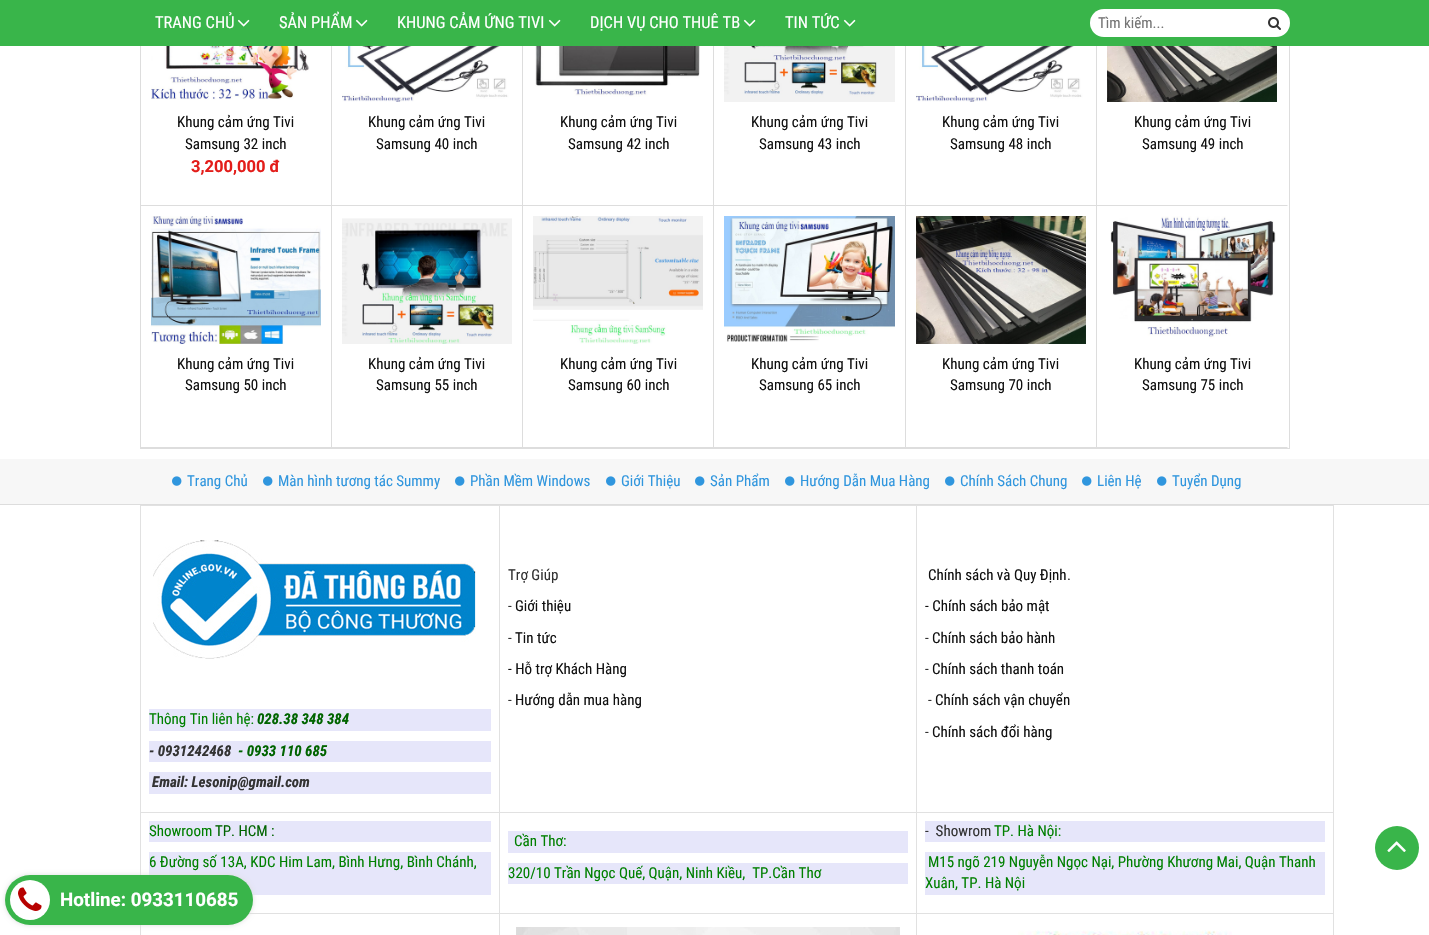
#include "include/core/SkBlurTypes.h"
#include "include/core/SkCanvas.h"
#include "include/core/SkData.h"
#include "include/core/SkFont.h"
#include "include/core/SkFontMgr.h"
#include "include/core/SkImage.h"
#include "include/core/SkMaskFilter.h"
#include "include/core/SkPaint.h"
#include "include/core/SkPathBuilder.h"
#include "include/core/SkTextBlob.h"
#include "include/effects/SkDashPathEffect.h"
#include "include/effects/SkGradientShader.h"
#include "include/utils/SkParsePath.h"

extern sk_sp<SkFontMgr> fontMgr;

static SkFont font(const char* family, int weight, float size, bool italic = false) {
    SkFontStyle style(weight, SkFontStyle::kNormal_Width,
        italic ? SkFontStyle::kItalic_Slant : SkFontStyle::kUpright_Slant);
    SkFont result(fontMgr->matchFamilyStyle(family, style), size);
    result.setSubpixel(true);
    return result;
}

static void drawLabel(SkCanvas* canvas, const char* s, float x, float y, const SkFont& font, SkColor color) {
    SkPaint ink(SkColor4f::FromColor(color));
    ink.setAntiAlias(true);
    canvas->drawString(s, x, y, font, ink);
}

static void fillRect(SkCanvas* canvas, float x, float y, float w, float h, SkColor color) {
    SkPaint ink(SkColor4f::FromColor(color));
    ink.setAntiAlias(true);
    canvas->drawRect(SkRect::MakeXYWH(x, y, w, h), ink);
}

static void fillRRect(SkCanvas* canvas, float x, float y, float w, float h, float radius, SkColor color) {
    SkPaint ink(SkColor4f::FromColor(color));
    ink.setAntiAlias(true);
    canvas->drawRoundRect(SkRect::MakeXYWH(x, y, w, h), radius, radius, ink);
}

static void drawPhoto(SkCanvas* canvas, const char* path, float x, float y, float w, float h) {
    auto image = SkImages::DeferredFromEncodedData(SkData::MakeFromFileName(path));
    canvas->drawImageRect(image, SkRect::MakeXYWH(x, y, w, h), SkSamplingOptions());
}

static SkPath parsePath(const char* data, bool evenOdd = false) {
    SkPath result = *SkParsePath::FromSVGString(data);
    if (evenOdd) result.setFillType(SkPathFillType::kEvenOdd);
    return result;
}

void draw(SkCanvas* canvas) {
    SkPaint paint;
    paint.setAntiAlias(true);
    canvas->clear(0xFFFFFFFF);
    fillRect(canvas, 0, 0, 1429, 46, 0xFF39B54A);
    SkFont font1 = font("Roboto Condensed", 400, 16.5f);
    drawLabel(canvas, "TRANG CHỦ", 155, 28, font1, 0xFFFFFFFF);
    drawPhoto(canvas, "assets/img1.png", 237, 19, 13, 8);
    drawLabel(canvas, "SẢN PHẨM", 279, 28, font1, 0xFFFFFFFF);
    drawPhoto(canvas, "assets/img1.png", 355, 19, 13, 8);
    drawLabel(canvas, "KHUNG CẢM ỨNG TIVI", 397, 28, font1, 0xFFFFFFFF);
    drawPhoto(canvas, "assets/img1.png", 548, 19, 13, 8);
    drawLabel(canvas, "DỊCH VỤ CHO THUÊ TB", 590, 28, font1, 0xFFFFFFFF);
    drawPhoto(canvas, "assets/img1.png", 743, 19, 13, 8);
    drawLabel(canvas, "TIN TỨC", 785, 28, font1, 0xFFFFFFFF);
    drawPhoto(canvas, "assets/img1.png", 843, 19, 13, 8);
    fillRRect(canvas, 1090, 9, 200, 28, 14, 0xFFFFFFFF);
    SkFont font2 = font("Roboto Condensed", 400, 15);
    drawLabel(canvas, "Tìm kiếm...", 1098, 28, font2, 0xFF757575);
    drawPhoto(canvas, "assets/img2.png", 1268, 17, 13, 13);
    fillRect(canvas, 1289, 46, 1, 403, 0xFFDDDDDD);
    fillRect(canvas, 140, 448, 1150, 1, 0xFFDDDDDD);
    fillRect(canvas, 140, 46, 1, 403, 0xFFDDDDDD);
    fillRect(canvas, 331, 46, 1, 402, 0xFFDDDDDD);
    fillRect(canvas, 141, 205, 191, 1, 0xFFDDDDDD);
    drawPhoto(canvas, "assets/img3.png", 151, 46, 159, 54);
    drawLabel(canvas, "Khung cảm ứng Tivi", 177, 127, font2, 0xFF111111);
    drawLabel(canvas, "Samsung 32 inch", 185, 149, font2, 0xFF111111);
    SkFont font3 = font("Roboto", 700, 16.5f);
    drawLabel(canvas, "3,200,000 đ", 191, 172, font3, 0xFFE31D1A);
    fillRect(canvas, 522, 46, 1, 402, 0xFFDDDDDD);
    fillRect(canvas, 332, 205, 191, 1, 0xFFDDDDDD);
    drawPhoto(canvas, "assets/img4.png", 342, 46, 170, 56);
    drawLabel(canvas, "Khung cảm ứng Tivi", 368, 127, font2, 0xFF111111);
    drawLabel(canvas, "Samsung 40 inch", 376, 149, font2, 0xFF111111);
    fillRect(canvas, 713, 46, 1, 402, 0xFFDDDDDD);
    fillRect(canvas, 523, 205, 191, 1, 0xFFDDDDDD);
    drawPhoto(canvas, "assets/img5.png", 535, 46, 165, 51);
    drawLabel(canvas, "Khung cảm ứng Tivi", 560, 127, font2, 0xFF111111);
    drawLabel(canvas, "Samsung 42 inch", 568, 149, font2, 0xFF111111);
    fillRect(canvas, 905, 46, 1, 402, 0xFFDDDDDD);
    fillRect(canvas, 714, 205, 192, 1, 0xFFDDDDDD);
    drawPhoto(canvas, "assets/img6.png", 724, 46, 171, 56);
    drawLabel(canvas, "Khung cảm ứng Tivi", 751, 127, font2, 0xFF111111);
    drawLabel(canvas, "Samsung 43 inch", 759, 149, font2, 0xFF111111);
    fillRect(canvas, 1096, 46, 1, 402, 0xFFDDDDDD);
    fillRect(canvas, 906, 205, 191, 1, 0xFFDDDDDD);
    drawPhoto(canvas, "assets/img7.png", 916, 46, 170, 56);
    drawLabel(canvas, "Khung cảm ứng Tivi", 942, 127, font2, 0xFF111111);
    drawLabel(canvas, "Samsung 48 inch", 950, 149, font2, 0xFF111111);
    paint.setColor(0xFFDDDDDD);
    canvas->drawPath(parsePath("M1288 206H1097V205H1287Z"), paint);
    drawPhoto(canvas, "assets/img8.png", 1107, 46, 170, 56);
    drawLabel(canvas, "Khung cảm ứng Tivi", 1134, 127, font2, 0xFF111111);
    drawLabel(canvas, "Samsung 49 inch", 1142, 149, font2, 0xFF111111);
    fillRect(canvas, 141, 447, 956, 1, 0xFFDDDDDD);
    drawPhoto(canvas, "assets/img9.png", 151, 216, 170, 128);
    drawLabel(canvas, "Khung cảm ứng Tivi", 177, 369, font2, 0xFF111111);
    drawLabel(canvas, "Samsung 50 inch", 185, 390, font2, 0xFF111111);
    drawPhoto(canvas, "assets/img10.png", 342, 218, 170, 126);
    drawLabel(canvas, "Khung cảm ứng Tivi", 368, 369, font2, 0xFF111111);
    drawLabel(canvas, "Samsung 55 inch", 376, 390, font2, 0xFF111111);
    drawPhoto(canvas, "assets/img11.png", 533, 216, 170, 128);
    drawLabel(canvas, "Khung cảm ứng Tivi", 560, 369, font2, 0xFF111111);
    drawLabel(canvas, "Samsung 60 inch", 568, 390, font2, 0xFF111111);
    drawPhoto(canvas, "assets/img12.png", 724, 216, 171, 126);
    drawLabel(canvas, "Khung cảm ứng Tivi", 751, 369, font2, 0xFF111111);
    drawLabel(canvas, "Samsung 65 inch", 759, 390, font2, 0xFF111111);
    drawPhoto(canvas, "assets/img13.png", 916, 216, 170, 128);
    drawLabel(canvas, "Khung cảm ứng Tivi", 942, 369, font2, 0xFF111111);
    drawLabel(canvas, "Samsung 70 inch", 950, 390, font2, 0xFF111111);
    canvas->drawPath(parsePath("M1288 448H1097V447H1287Z"), paint);
    drawPhoto(canvas, "assets/img14.png", 1110, 216, 166, 123);
    drawLabel(canvas, "Khung cảm ứng Tivi", 1134, 369, font2, 0xFF111111);
    drawLabel(canvas, "Samsung 75 inch", 1142, 390, font2, 0xFF111111);
    fillRect(canvas, 0, 459, 1429, 45, 0xFFF7F7F7);
    fillRect(canvas, 0, 504, 1429, 1, 0xFFDDDDDD);
    drawPhoto(canvas, "assets/img15.png", 172, 476, 10, 10);
    drawLabel(canvas, "Trang Chủ", 187, 486, font2, 0xFF3096DE);
    drawPhoto(canvas, "assets/img15.png", 263, 476, 10, 10);
    drawLabel(canvas, "Màn hình tương tác Summy", 278, 486, font2, 0xFF3096DE);
    drawPhoto(canvas, "assets/img15.png", 455, 476, 10, 10);
    drawLabel(canvas, "Phần Mềm Windows", 470, 486, font2, 0xFF3096DE);
    drawPhoto(canvas, "assets/img15.png", 606, 476, 10, 10);
    drawLabel(canvas, "Giới Thiệu", 621, 486, font2, 0xFF3096DE);
    drawPhoto(canvas, "assets/img15.png", 695, 476, 10, 10);
    drawLabel(canvas, "Sản Phẩm", 710, 486, font2, 0xFF3096DE);
    drawPhoto(canvas, "assets/img15.png", 785, 476, 10, 10);
    drawLabel(canvas, "Hướng Dẫn Mua Hàng", 800, 486, font2, 0xFF3096DE);
    drawPhoto(canvas, "assets/img15.png", 945, 476, 10, 10);
    drawLabel(canvas, "Chính Sách Chung", 960, 486, font2, 0xFF3096DE);
    drawPhoto(canvas, "assets/img15.png", 1082, 476, 10, 10);
    drawLabel(canvas, "Liên Hệ", 1097, 486, font2, 0xFF3096DE);
    drawPhoto(canvas, "assets/img15.png", 1157, 476, 10, 10);
    drawLabel(canvas, "Tuyển Dụng", 1172, 486, font2, 0xFF3096DE);
    fillRect(canvas, 140, 505, 1194, 1, 0xFFE1E1E1);
    fillRect(canvas, 1333, 505, 1, 430, 0xFFE1E1E1);
    fillRect(canvas, 140, 505, 1, 430, 0xFFE1E1E1);
    fillRect(canvas, 916, 812, 418, 1, 0xFFE1E1E1);
    fillRect(canvas, 916, 913, 418, 1, 0xFFE1E1E1);
    fillRect(canvas, 916, 913, 1, 22, 0xFFE1E1E1);
    fillRect(canvas, 499, 913, 418, 1, 0xFFE1E1E1);
    fillRect(canvas, 916, 812, 1, 102, 0xFFE1E1E1);
    fillRect(canvas, 499, 812, 418, 1, 0xFFE1E1E1);
    fillRect(canvas, 499, 913, 1, 22, 0xFFE1E1E1);
    fillRect(canvas, 248, 913, 252, 1, 0xFFE1E1E1);
    fillRect(canvas, 499, 812, 1, 102, 0xFFE1E1E1);
    fillRect(canvas, 140, 812, 360, 1, 0xFFE1E1E1);
    fillRect(canvas, 499, 505, 1, 308, 0xFFE1E1E1);
    drawLabel(canvas, "Trợ Giúp", 508, 580, font2, 0xFF333333);
    drawLabel(canvas, "-", 508, 611, font2, 0xFF333333);
    drawLabel(canvas, "Giới thiệu", 515, 611, font2, 0xFF111111);
    drawLabel(canvas, "-", 508, 643, font2, 0xFF333333);
    drawLabel(canvas, "Tin tức", 515, 643, font2, 0xFF111111);
    drawLabel(canvas, "- Hỗ trợ Khách Hàng", 508, 674, font2, 0xFF111111);
    drawLabel(canvas, "-", 508, 705, font2, 0xFF333333);
    drawLabel(canvas, "Hướng dẫn mua hàng", 515, 705, font2, 0xFF111111);
    fillRect(canvas, 916, 505, 1, 308, 0xFFE1E1E1);
    drawLabel(canvas, "Chính sách và Quy Định", 928, 580, font2, 0xFF111111);
    drawLabel(canvas, ".", 1067, 580, font2, 0xFF333333);
    drawLabel(canvas, "- Chính sách bảo mật", 925, 611, font2, 0xFF111111);
    drawLabel(canvas, "-", 925, 643, font2, 0xFF333333);
    drawLabel(canvas, "Chính sách bảo hành", 932, 643, font2, 0xFF111111);
    drawLabel(canvas, "-", 925, 674, font2, 0xFF333333);
    drawLabel(canvas, "Chính sách thanh toán", 932, 674, font2, 0xFF111111);
    drawLabel(canvas, "-", 928, 705, font2, 0xFF333333);
    drawLabel(canvas, "Chính sách vận chuyển", 935, 705, font2, 0xFF111111);
    drawLabel(canvas, "-", 925, 737, font2, 0xFF333333);
    drawLabel(canvas, "Chính sách đổi hàng", 932, 737, font2, 0xFF111111);
    drawPhoto(canvas, "assets/img16.png", 153, 540, 323, 119);
    fillRect(canvas, 149, 709, 342, 22, 0xFFE6E6FA);
    drawLabel(canvas, "Thông Tin liên hệ:", 149, 724, font2, 0xFF008000);
    SkFont font4 = font("Roboto Condensed", 700, 15, true);
    drawLabel(canvas, "028.38 348 384", 257, 724, font4, 0xFF006400);
    fillRect(canvas, 149, 741, 342, 21, 0xFFE6E6FA);
    drawLabel(canvas, "- 0931242468", 149, 756, font4, 0xFF333333);
    drawLabel(canvas, "- 0933 110 685", 238, 756, font4, 0xFF006400);
    fillRect(canvas, 149, 772, 342, 22, 0xFFE6E6FA);
    drawLabel(canvas, "Email: Lesonip@gmail.com", 152, 787, font4, 0xFF333333);
    fillRect(canvas, 149, 821, 342, 21, 0xFFE6E6FA);
    drawLabel(canvas, "Showroom", 149, 836, font2, 0xFF008000);
    drawLabel(canvas, "TP. HCM :", 215, 836, font2, 0xFF006400);
    fillRect(canvas, 149, 852, 342, 43, 0xFFE6E6FA);
    drawLabel(canvas, "6 Đường số 13A, KDC Him Lam, Bình Hưng, Bình Chánh,", 149, 867, font2, 0xFF008000);
    fillRect(canvas, 508, 831, 400, 22, 0xFFE6E6FA);
    drawLabel(canvas, "Cần Thơ:", 514, 846, font2, 0xFF008000);
    fillRect(canvas, 508, 863, 400, 21, 0xFFE6E6FA);
    drawLabel(canvas, "320/10 Trần Ngọc Quế, Quận, Ninh Kiều,  TP.Cần Thơ", 508, 878, font2, 0xFF008000);
    fillRect(canvas, 925, 821, 400, 21, 0xFFE6E6FA);
    drawLabel(canvas, "-  Showrom", 925, 836, font2, 0xFF333333);
    drawLabel(canvas, "TP. Hà Nội:", 994, 836, font2, 0xFF008000);
    fillRect(canvas, 925, 852, 400, 43, 0xFFE6E6FA);
    drawLabel(canvas, "M15 ngõ 219 Nguyễn Ngọc Nại, Phường Khương Mai, Quận Thanh", 928, 867, font2, 0xFF008000);
    drawLabel(canvas, "Xuân, TP. Hà Nội", 925, 888, font2, 0xFF008000);
    drawPhoto(canvas, "assets/img17.png", 516, 927, 384, 8);
    drawPhoto(canvas, "assets/img18.png", 1018, 930, 214, 5);
    paint.setColor(0xFF39B54A);
    canvas->drawCircle(1397, 848, 22, paint);
    drawPhoto(canvas, "assets/img19.png", 1387, 841, 19, 11);
    paint.setColor(0xFFDDDDDD);
    paint.setMaskFilter(SkMaskFilter::MakeBlur(kNormal_SkBlurStyle, 2.5f));
    canvas->drawRoundRect(SkRect::MakeXYWH(5, 875, 248, 50), 25, 25, paint);
    paint.setMaskFilter(nullptr);
    fillRRect(canvas, 5, 875, 248, 50, 25, 0xFF39B54A);
    paint.setColor(0xFFFFFFFF);
    canvas->drawCircle(30, 900, 20, paint);
    drawPhoto(canvas, "assets/img20.png", 18, 887, 24, 24);
    SkFont font5 = font("Roboto", 700, 18.75f);
    drawLabel(canvas, "Hotline: 0933110685", 60, 906, font5, 0xFFFFFFFF);
}
